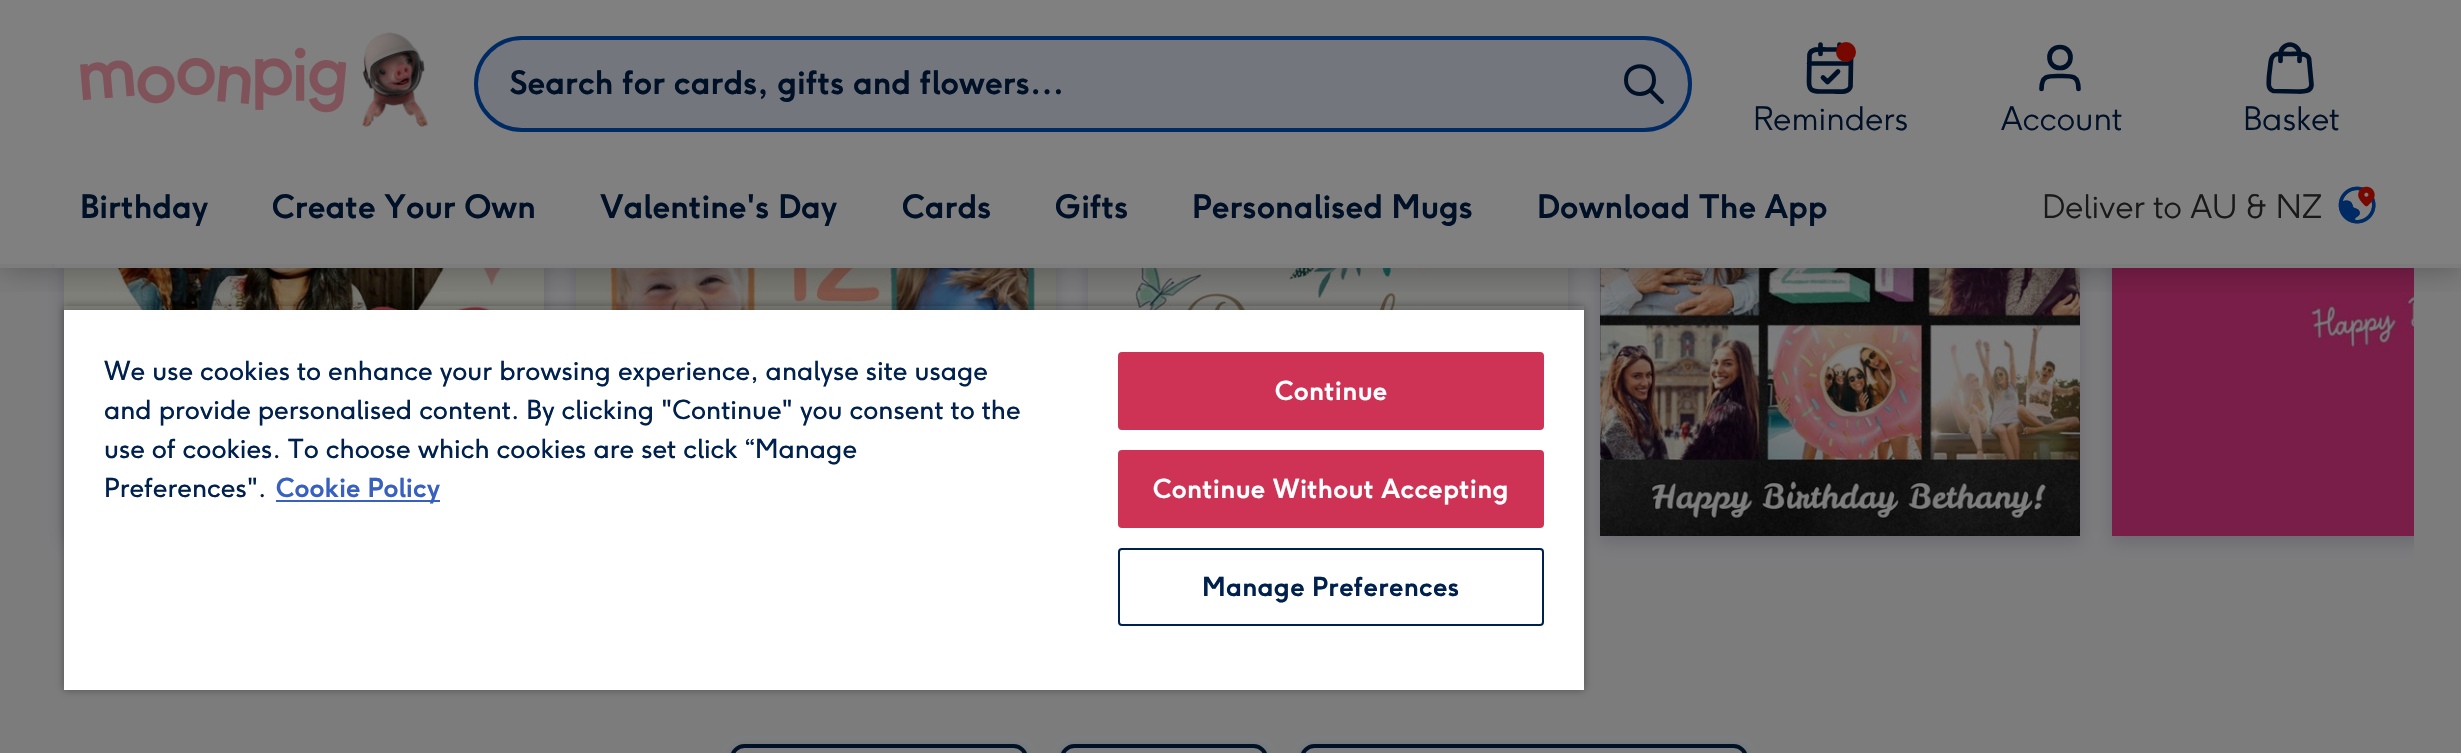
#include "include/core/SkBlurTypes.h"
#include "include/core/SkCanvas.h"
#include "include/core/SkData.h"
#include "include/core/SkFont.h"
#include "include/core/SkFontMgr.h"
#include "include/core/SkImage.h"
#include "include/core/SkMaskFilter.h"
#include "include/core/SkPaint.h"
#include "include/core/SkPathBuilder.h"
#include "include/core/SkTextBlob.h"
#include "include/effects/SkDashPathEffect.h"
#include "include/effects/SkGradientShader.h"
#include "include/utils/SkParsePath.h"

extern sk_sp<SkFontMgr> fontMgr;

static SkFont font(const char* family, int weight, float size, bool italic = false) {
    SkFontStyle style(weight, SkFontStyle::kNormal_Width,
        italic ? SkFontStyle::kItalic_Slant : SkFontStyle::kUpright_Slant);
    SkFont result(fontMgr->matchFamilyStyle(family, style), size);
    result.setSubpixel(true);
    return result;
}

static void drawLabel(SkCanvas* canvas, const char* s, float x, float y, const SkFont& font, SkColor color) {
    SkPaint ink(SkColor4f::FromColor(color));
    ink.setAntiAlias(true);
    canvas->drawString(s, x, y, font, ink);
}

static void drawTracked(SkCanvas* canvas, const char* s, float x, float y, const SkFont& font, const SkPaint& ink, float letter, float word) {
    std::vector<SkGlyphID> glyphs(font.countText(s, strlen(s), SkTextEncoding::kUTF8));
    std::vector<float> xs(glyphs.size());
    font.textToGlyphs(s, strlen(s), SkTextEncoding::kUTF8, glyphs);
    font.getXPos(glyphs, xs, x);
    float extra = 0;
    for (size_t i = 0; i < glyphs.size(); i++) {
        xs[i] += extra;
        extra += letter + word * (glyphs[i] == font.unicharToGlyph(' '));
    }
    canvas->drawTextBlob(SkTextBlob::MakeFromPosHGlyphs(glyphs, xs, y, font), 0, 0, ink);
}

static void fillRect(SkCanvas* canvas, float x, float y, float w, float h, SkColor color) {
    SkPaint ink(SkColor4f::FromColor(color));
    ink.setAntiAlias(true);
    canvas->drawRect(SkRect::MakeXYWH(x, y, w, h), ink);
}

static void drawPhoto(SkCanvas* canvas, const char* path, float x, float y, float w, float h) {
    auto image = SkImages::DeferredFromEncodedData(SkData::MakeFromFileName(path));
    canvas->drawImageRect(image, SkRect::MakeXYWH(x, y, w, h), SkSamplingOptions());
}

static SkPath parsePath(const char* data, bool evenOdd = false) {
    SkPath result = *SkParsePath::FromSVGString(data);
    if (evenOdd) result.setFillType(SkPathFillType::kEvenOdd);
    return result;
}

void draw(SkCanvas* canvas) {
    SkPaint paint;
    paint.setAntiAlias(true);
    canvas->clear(0xFF7C7C7D);
    paint.setColor(0x26000227);
    paint.setMaskFilter(SkMaskFilter::MakeBlur(kNormal_SkBlurStyle, 8));
    canvas->drawRect(SkRect::MakeXYWH(64, -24, 480, 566), paint);
    paint.setMaskFilter(nullptr);
    drawPhoto(canvas, "assets/img1.png", 64, 268, 480, 42);
    paint.setMaskFilter(SkMaskFilter::MakeBlur(kNormal_SkBlurStyle, 8));
    canvas->drawRect(SkRect::MakeXYWH(576, -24, 480, 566), paint);
    paint.setMaskFilter(nullptr);
    drawPhoto(canvas, "assets/img2.png", 576, 268, 480, 42);
    paint.setMaskFilter(SkMaskFilter::MakeBlur(kNormal_SkBlurStyle, 8));
    canvas->drawRect(SkRect::MakeXYWH(1088, -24, 480, 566), paint);
    paint.setMaskFilter(nullptr);
    drawPhoto(canvas, "assets/img3.png", 1088, 268, 480, 42);
    paint.setMaskFilter(SkMaskFilter::MakeBlur(kNormal_SkBlurStyle, 8));
    canvas->drawRect(SkRect::MakeXYWH(1600, -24, 480, 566), paint);
    paint.setMaskFilter(nullptr);
    drawPhoto(canvas, "assets/img4.png", 1600, 268, 480, 268);
    canvas->save();
    canvas->clipRect(SkRect::MakeXYWH(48, 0, 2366, 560));
    paint.setMaskFilter(SkMaskFilter::MakeBlur(kNormal_SkBlurStyle, 8));
    canvas->drawRect(SkRect::MakeXYWH(2112, -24, 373, 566), paint);
    paint.setMaskFilter(nullptr);
    canvas->restore();
    drawPhoto(canvas, "assets/img5.png", 2112, 268, 302, 268);
    paint.setColor(0x26001027);
    paint.setMaskFilter(SkMaskFilter::MakeBlur(kNormal_SkBlurStyle, 4));
    canvas->drawRoundRect(SkRect::MakeXYWH(730, 746, 298, 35), 16, 16, paint);
    paint.setMaskFilter(nullptr);
    paint.setColor(0xFF808080);
    canvas->drawRoundRect(SkRect::MakeXYWH(732, 746, 294, 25), 14, 14, paint);
    paint.setStroke(true);
    paint.setStrokeWidth(4);
    paint.setColor(0xFF001027);
    canvas->drawRoundRect(SkRect::MakeXYWH(732, 746, 294, 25), 14, 14, paint);
    paint.setStroke(false);
    paint.setColor(0x26001027);
    paint.setMaskFilter(SkMaskFilter::MakeBlur(kNormal_SkBlurStyle, 4));
    canvas->drawRoundRect(SkRect::MakeXYWH(1060, 746, 208, 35), 16, 16, paint);
    paint.setMaskFilter(nullptr);
    paint.setColor(0xFF808080);
    canvas->drawRoundRect(SkRect::MakeXYWH(1062, 746, 204, 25), 14, 14, paint);
    paint.setStroke(true);
    paint.setColor(0xFF001027);
    canvas->drawRoundRect(SkRect::MakeXYWH(1062, 746, 204, 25), 14, 14, paint);
    paint.setStroke(false);
    paint.setColor(0x26001027);
    paint.setMaskFilter(SkMaskFilter::MakeBlur(kNormal_SkBlurStyle, 4));
    canvas->drawRoundRect(SkRect::MakeXYWH(1300, 746, 448, 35), 16, 16, paint);
    paint.setMaskFilter(nullptr);
    paint.setColor(0xFF808080);
    canvas->drawRoundRect(SkRect::MakeXYWH(1302, 746, 444, 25), 14, 14, paint);
    paint.setStroke(true);
    paint.setColor(0xFF001027);
    canvas->drawRoundRect(SkRect::MakeXYWH(1302, 746, 444, 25), 14, 14, paint);
    fillRect(canvas, 0, 0, 2461, 264, 0xFF808080);
    fillRect(canvas, 55, 264, 2359, 4, 0xFF7C7C7D);
    canvas->save();
    canvas->clipRect(SkRect::MakeXYWH(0, 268, 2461, 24));
    paint.setStroke(false);
    paint.setColor(0x4D000000);
    paint.setMaskFilter(SkMaskFilter::MakeBlur(kNormal_SkBlurStyle, 16));
    canvas->drawRect(SkRect::MakeXYWH(0, 0, 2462, 268), paint);
    paint.setMaskFilter(nullptr);
    canvas->restore();
    drawPhoto(canvas, "assets/img6.png", 80, 47, 266, 66);
    drawPhoto(canvas, "assets/img7.png", 362, 32, 66, 95);
    paint.setColor(0xFF73777D);
    canvas->drawRoundRect(SkRect::MakeXYWH(476, 38, 1214, 92), 46, 46, paint);
    paint.setStroke(true);
    paint.setColor(0xFF002A64);
    canvas->drawRoundRect(SkRect::MakeXYWH(476, 38, 1214, 92), 46, 46, paint);
    SkFont font1 = font("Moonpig", 700, 32);
    drawLabel(canvas, "Search for cards, gifts and flowers…", 510, 94, font1, 0xFF001027);
    paint.setStrokeCap(SkPaint::kRound_Cap);
    paint.setStrokeJoin(SkPaint::kRound_Join);
    paint.setColor(0xFF001027);
    canvas->drawPath(parsePath("M1662 102L1650 90M1654 80C1654 98.5 1626 98.5 1626 80C1626 61.5 1654 61.5 1654 80"), paint);
    paint.setStrokeWidth(4.7f);
    canvas->drawPath(parsePath("M1851 63.5H1809M1839.5 44.5V54M1820.5 44.5V54M1823 77.5L1827.5 82L1838 71.5M1820 91.5H1833.5C1838 91.5 1849 93.5 1850.5 86.5L1851 59C1851 50.5 1848 49.5 1840 49.5H1826.5C1822 49.5 1811 47.5 1809.5 54.5L1809 81.5C1809 90 1812 91.5 1820 91.5"), paint);
    paint.setStroke(false);
    paint.setColor(0xFF760800);
    canvas->drawCircle(1846, 52, 10, paint);
    SkFont font2 = font("Moonpig", 300, 32);
    drawLabel(canvas, "Reminders", 1753, 130, font2, 0xFF001027);
    paint.setStroke(true);
    paint.setColor(0xFF001027);
    canvas->drawPath(parsePath("M2078.5 89C2078.5 75 2071.5 76 2060 76C2048.5 76 2041.5 75 2041.5 89M2070.5 57.5C2070.5 71.5 2049.5 71.5 2049.5 57.5C2049.5 43.5 2070.5 43.5 2070.5 57.5"), paint);
    drawLabel(canvas, "Account", 2001, 130, font2, 0xFF001027);
    canvas->drawPath(parsePath("M2299.5 61V54C2299.5 49 2295 44.5 2290 44.5C2285 44.5 2280.5 49 2280.5 54V61M2270.5 64L2269 76.5C2269 81.5 2267 89.5 2273.5 91L2296.5 91.5C2302 91.5 2311 92.5 2311.5 85L2309 58.5C2306.5 52 2295 54 2290 54C2278.5 54 2271.5 51 2270.5 64"), paint);
    drawLabel(canvas, "Basket", 2243, 130, font2, 0xFF001027);
    drawLabel(canvas, "Birthday", 80, 218, font1, 0xFF001027);
    drawLabel(canvas, "Create Your Own", 272, 218, font1, 0xFF001027);
    drawLabel(canvas, "Valentine's Day", 600, 218, font1, 0xFF001027);
    drawLabel(canvas, "Cards", 902, 218, font1, 0xFF001027);
    drawLabel(canvas, "Gifts", 1055, 218, font1, 0xFF001027);
    drawLabel(canvas, "Personalised Mugs", 1192, 218, font1, 0xFF001027);
    drawLabel(canvas, "Download The App", 1537, 218, font1, 0xFF001027);
    drawLabel(canvas, "Deliver to AU & NZ", 2042, 218, font2, 0xFF191919);
    drawPhoto(canvas, "assets/img8.png", 2338, 186, 38, 38);
    canvas->save();
    canvas->clipPath(parsePath("M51 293H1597V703H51ZM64 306H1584V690H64Z", true), true);
    paint.setStroke(false);
    paint.setColor(0x59000000);
    paint.setMaskFilter(SkMaskFilter::MakeBlur(kNormal_SkBlurStyle, 4));
    canvas->drawRect(SkRect::MakeXYWH(64, 306, 1520, 384), paint);
    paint.setMaskFilter(nullptr);
    canvas->restore();
    canvas->save();
    canvas->clipRect(SkRect::MakeXYWH(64, 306, 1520, 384));
    paint.setColor(0x33000000);
    paint.setMaskFilter(SkMaskFilter::MakeBlur(kNormal_SkBlurStyle, 4));
    canvas->drawRect(SkRect::MakeXYWH(64, 310, 1520, 380), paint);
    paint.setMaskFilter(nullptr);
    canvas->restore();
    fillRect(canvas, 64, 310, 1520, 380, 0xFFFFFFFF);
    SkFont font3 = font("Moonpig", 400, 26);
    drawLabel(canvas, "We use cookies to enhance your browsing experience, analyse site usage", 104, 380, font3, 0xFF00204D);
    drawLabel(canvas, "and provide personalised content. By clicking \"Continue\" you consent to the", 104, 419, font3, 0xFF00204D);
    drawLabel(canvas, "use of cookies. To choose which cookies are set click “Manage", 104, 458, font3, 0xFF00204D);
    drawLabel(canvas, "Preferences\".", 104, 497, font3, 0xFF00204D);
    fillRect(canvas, 276, 500, 164, 2, 0xFF3860BE);
    SkFont font4 = font("Moonpig", 700, 26);
    drawLabel(canvas, "Cookie Policy", 276, 497, font4, 0xFF3860BE);
    paint.setColor(0xFFCE3356);
    canvas->drawRoundRect(SkRect::MakeXYWH(1119, 353, 424, 76), 3, 3, paint);
    paint.setStroke(true);
    paint.setStrokeWidth(2);
    paint.setStrokeCap(SkPaint::kButt_Cap);
    paint.setStrokeJoin(SkPaint::kMiter_Join);
    canvas->drawRoundRect(SkRect::MakeXYWH(1119, 353, 424, 76), 3, 3, paint);
    paint.setStroke(false);
    paint.setColor(0xFFFFFFFF);
    drawTracked(canvas, "Continue", 1275, 400, font4, paint, 0.25f, 0);
    paint.setColor(0xFFCE3356);
    canvas->drawRoundRect(SkRect::MakeXYWH(1119, 451, 424, 76), 3, 3, paint);
    paint.setStroke(true);
    canvas->drawRoundRect(SkRect::MakeXYWH(1119, 451, 424, 76), 3, 3, paint);
    paint.setStroke(false);
    paint.setColor(0xFFFFFFFF);
    drawTracked(canvas, "Continue Without Accepting", 1153, 498, font4, paint, 0.25f, 0);
    paint.setStroke(true);
    paint.setColor(0xFF00204D);
    canvas->drawRoundRect(SkRect::MakeXYWH(1119, 549, 424, 76), 3, 3, paint);
    paint.setStroke(false);
    drawTracked(canvas, "Manage Preferences", 1202, 596, font4, paint, 0.25f, 0);
}
